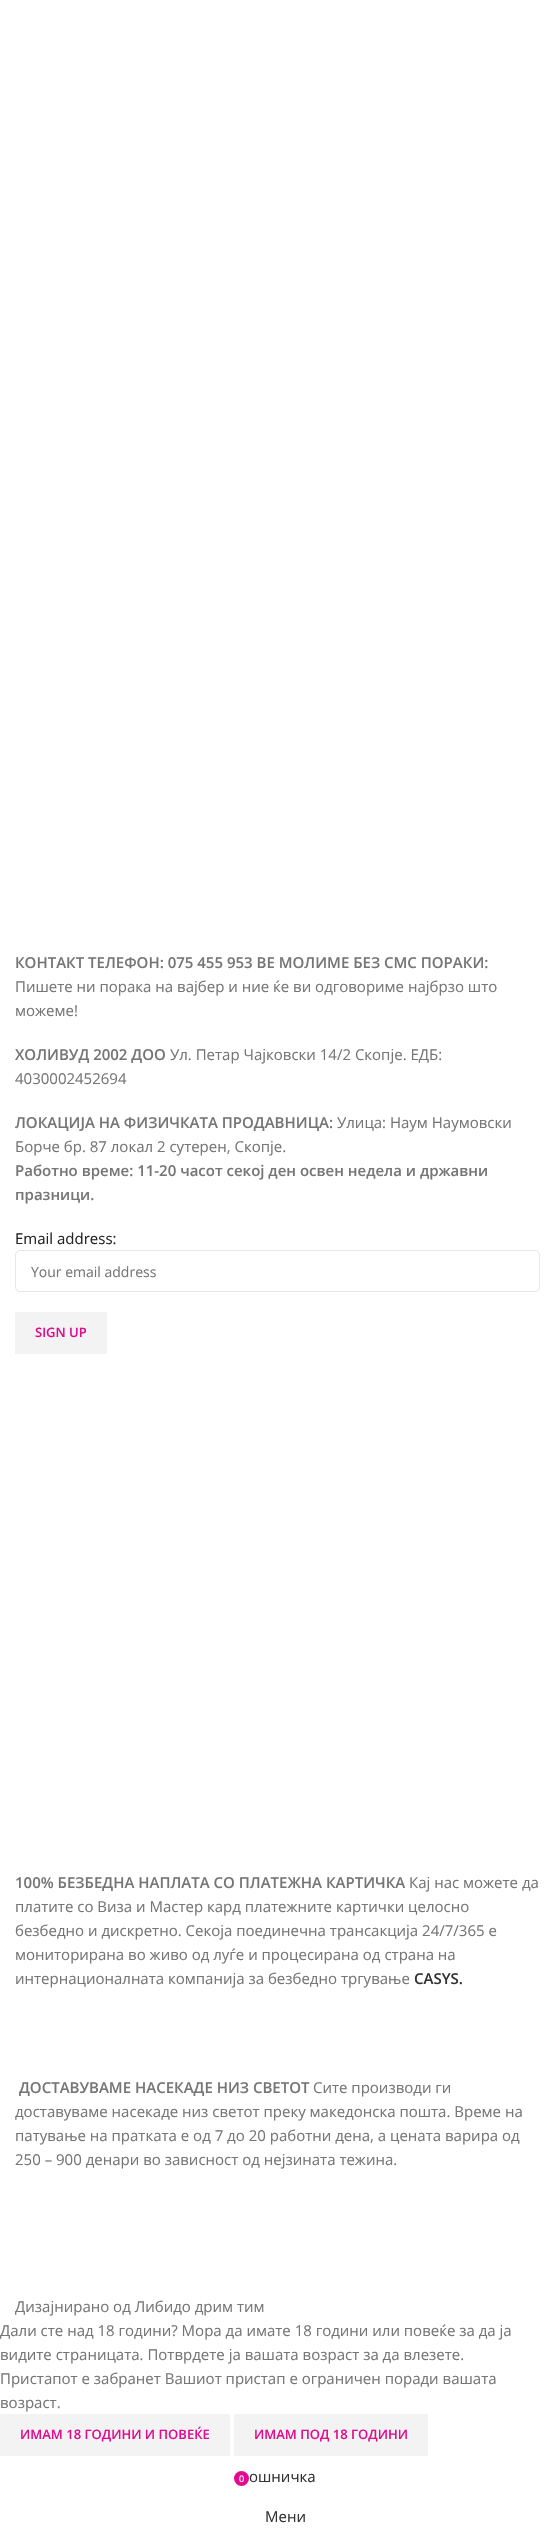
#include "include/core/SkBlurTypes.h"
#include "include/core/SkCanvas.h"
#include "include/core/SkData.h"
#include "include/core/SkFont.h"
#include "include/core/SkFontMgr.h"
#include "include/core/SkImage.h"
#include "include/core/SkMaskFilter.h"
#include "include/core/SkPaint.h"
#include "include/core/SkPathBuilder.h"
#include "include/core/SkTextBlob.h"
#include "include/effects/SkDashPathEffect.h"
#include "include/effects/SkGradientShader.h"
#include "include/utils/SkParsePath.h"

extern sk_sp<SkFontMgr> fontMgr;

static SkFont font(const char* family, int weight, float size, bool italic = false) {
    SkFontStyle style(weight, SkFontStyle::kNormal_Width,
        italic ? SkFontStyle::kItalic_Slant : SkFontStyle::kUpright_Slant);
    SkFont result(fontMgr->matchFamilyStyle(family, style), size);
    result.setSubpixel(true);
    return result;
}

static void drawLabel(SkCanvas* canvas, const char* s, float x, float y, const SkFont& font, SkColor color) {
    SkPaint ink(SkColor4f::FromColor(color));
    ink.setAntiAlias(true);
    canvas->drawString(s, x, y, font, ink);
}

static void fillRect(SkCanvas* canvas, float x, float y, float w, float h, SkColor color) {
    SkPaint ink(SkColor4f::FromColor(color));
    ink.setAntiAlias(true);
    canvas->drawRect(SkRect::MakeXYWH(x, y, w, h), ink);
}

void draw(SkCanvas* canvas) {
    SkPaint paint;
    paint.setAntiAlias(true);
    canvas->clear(0xFFFFFFFF);
    SkFont font1 = font("Open Sans", 600, 15);
    drawLabel(canvas, "КОНТАКТ TЕЛЕФОН: 075 455 953 ВЕ МОЛИМЕ БЕЗ СМС ПОРАКИ:", 15, 968, font1, 0xFF767676);
    SkFont font2 = font("Open Sans", 400, 15);
    drawLabel(canvas, "Пишете ни порака на вајбер и ние ќе ви одговориме најбрзо што", 15, 992, font2, 0xFF767676);
    drawLabel(canvas, "можеме!", 15, 1016, font2, 0xFF767676);
    drawLabel(canvas, "ХОЛИВУД 2002 ДОО", 15, 1060, font1, 0xFF767676);
    drawLabel(canvas, "Ул. Петар Чајковски 14/2 Скопје. ЕДБ:", 170, 1060, font2, 0xFF767676);
    drawLabel(canvas, "4030002452694", 15, 1084, font2, 0xFF767676);
    drawLabel(canvas, "ЛОКАЦИЈА НА ФИЗИЧКАТА ПРОДАВНИЦА:", 15, 1128, font1, 0xFF767676);
    drawLabel(canvas, "Улица: Наум Наумовски", 337, 1128, font2, 0xFF767676);
    drawLabel(canvas, "Борче бр. 87 локал 2 сутерен, Скопје.", 15, 1152, font2, 0xFF767676);
    drawLabel(canvas, "Работно време: 11-20 часот секој ден освен недела и државни", 15, 1176, font1, 0xFF767676);
    drawLabel(canvas, "празници.", 15, 1200, font1, 0xFF767676);
    drawLabel(canvas, "Email address:", 15, 1244, font2, 0xFF242424);
    paint.setStroke(true);
    paint.setStrokeWidth(1);
    paint.setColor(0xFFE6E6E6);
    canvas->drawRoundRect(SkRect::MakeXYWH(15.5f, 1250.5f, 524, 41), 4.5f, 4.5f, paint);
    SkFont font3 = font("Open Sans", 400, 14);
    drawLabel(canvas, "Your email address", 31, 1277, font3, 0xFF767676);
    fillRect(canvas, 15, 1312, 92, 42, 0xFFF3F3F3);
    SkFont font4 = font("Open Sans", 600, 13);
    drawLabel(canvas, "SIGN UP", 35, 1337, font4, 0xFFE10B8F);
    drawLabel(canvas, "100% БЕЗБЕДНА НАПЛАТА СО ПЛАТЕЖНА КАРТИЧКА", 15, 1888, font1, 0xFF767676);
    drawLabel(canvas, "Кај нас можете да", 409, 1888, font2, 0xFF767676);
    drawLabel(canvas, "платите со Виза и Мастер кард платежните картички целосно", 15, 1912, font2, 0xFF767676);
    drawLabel(canvas, "безбедно и дискретно. Секоја поединечна трансакција 24/7/365 е", 15, 1936, font2, 0xFF767676);
    drawLabel(canvas, "мониторирана во живо од луѓе и процесирана од страна на", 15, 1960, font2, 0xFF767676);
    drawLabel(canvas, "интернационалната компанија за безбедно тргување", 15, 1984, font2, 0xFF767676);
    drawLabel(canvas, "CASYS.", 414, 1984, font1, 0xFF333333);
    drawLabel(canvas, "ДОСТАВУВАМЕ НАСЕКАДЕ НИЗ СВЕТОТ", 19, 2093, font1, 0xFF767676);
    drawLabel(canvas, "Сите производи ги", 313, 2093, font2, 0xFF767676);
    drawLabel(canvas, "доставуваме насекаде низ светот преку македонска пошта. Време на", 15, 2117, font2, 0xFF767676);
    drawLabel(canvas, "патување на пратката е од 7 до 20 работни дена, а цената варира од", 15, 2141, font2, 0xFF767676);
    drawLabel(canvas, "250 – 900 денари во зависност од нејзината тежина.", 15, 2165, font2, 0xFF767676);
    drawLabel(canvas, "Дизајнирано од Либидо дрим тим", 15, 2312, font2, 0xFF767676);
    drawLabel(canvas, "Дали сте над 18 години? Мора да имате 18 години или повеќе за да ја", 0, 2336, font2, 0xFF767676);
    drawLabel(canvas, "видите страницата. Потврдете ја вашата возраст за да влезете.", 0, 2360, font2, 0xFF767676);
    drawLabel(canvas, "Пристапот е забранет Вашиот пристап е ограничен поради вашата", 0, 2384, font2, 0xFF767676);
    drawLabel(canvas, "возраст.", 0, 2408, font2, 0xFF767676);
    fillRect(canvas, 0, 2414, 230, 42, 0xFFF3F3F3);
    drawLabel(canvas, "ИМАМ 18 ГОДИНИ И ПОВЕЌЕ", 20, 2439, font4, 0xFFE10B8F);
    fillRect(canvas, 234, 2414, 194, 42, 0xFFF3F3F3);
    drawLabel(canvas, "ИМАМ ПОД 18 ГОДИНИ", 254, 2439, font4, 0xFFE10B8F);
    paint.setStroke(false);
    paint.setColor(0xFFE10B8F);
    canvas->drawCircle(241.5f, 2478.5f, 7.5f, paint);
    SkFont font5 = font("Open Sans", 400, 9);
    drawLabel(canvas, "0", 239, 2482, font5, 0xFFFFFFFF);
    drawLabel(canvas, "ошничка", 249, 2482, font2, 0xFF333333);
    drawLabel(canvas, "Мени", 265, 2522, font2, 0xFF333333);
}
